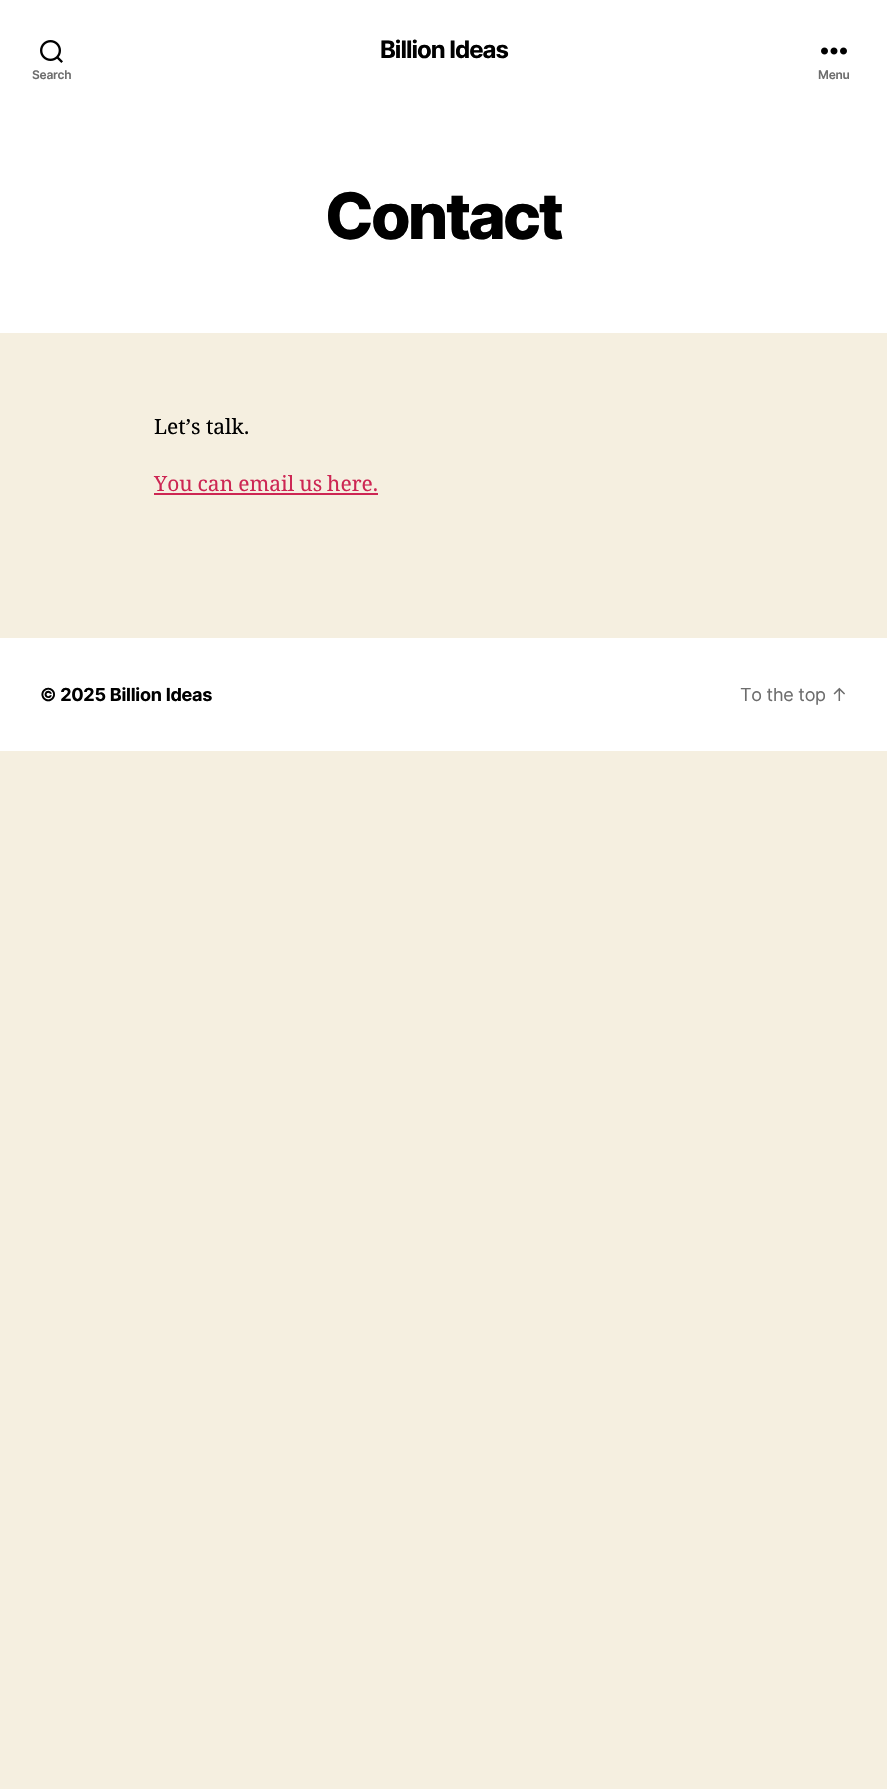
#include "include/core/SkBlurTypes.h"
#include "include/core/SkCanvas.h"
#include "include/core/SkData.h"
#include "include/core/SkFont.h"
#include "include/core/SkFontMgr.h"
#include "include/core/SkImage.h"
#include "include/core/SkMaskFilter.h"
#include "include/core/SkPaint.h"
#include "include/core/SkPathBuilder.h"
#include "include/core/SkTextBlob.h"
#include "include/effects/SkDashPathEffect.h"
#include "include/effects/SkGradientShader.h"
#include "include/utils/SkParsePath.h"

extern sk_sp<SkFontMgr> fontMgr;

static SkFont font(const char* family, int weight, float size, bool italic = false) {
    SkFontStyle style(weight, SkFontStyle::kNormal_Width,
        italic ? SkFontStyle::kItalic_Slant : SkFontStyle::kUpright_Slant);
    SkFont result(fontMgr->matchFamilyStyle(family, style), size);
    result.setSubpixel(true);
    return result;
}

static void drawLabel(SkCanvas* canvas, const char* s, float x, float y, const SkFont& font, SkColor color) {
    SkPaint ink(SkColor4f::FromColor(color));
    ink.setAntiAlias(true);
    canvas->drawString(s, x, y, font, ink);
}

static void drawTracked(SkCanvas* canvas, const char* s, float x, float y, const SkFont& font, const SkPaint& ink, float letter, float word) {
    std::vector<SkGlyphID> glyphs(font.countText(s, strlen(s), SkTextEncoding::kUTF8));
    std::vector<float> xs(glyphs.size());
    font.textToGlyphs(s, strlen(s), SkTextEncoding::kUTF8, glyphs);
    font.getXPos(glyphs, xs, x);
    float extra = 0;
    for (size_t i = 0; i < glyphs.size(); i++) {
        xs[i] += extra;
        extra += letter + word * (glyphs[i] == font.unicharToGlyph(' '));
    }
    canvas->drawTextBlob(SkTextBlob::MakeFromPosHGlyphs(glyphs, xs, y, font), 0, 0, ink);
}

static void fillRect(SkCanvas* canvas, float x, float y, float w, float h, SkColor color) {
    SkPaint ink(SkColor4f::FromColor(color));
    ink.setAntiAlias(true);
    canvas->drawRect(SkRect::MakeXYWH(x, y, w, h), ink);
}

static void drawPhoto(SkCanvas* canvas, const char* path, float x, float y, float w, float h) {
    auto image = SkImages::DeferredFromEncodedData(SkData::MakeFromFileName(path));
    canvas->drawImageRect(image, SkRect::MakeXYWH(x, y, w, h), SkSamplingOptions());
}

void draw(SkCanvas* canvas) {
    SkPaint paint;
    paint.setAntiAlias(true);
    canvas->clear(0xFFF5EFE0);
    fillRect(canvas, 0, 0, 887, 333, 0xFFFFFFFF);
    SkFont font1 = font("Inter", 700, 24);
    paint.setColor(0xFF000000);
    drawTracked(canvas, "Billion Ideas", 380, 58, font1, paint, -1, 0);
    drawPhoto(canvas, "assets/img1.png", 40, 40, 23, 23);
    SkFont font2 = font("Inter", 600, 12);
    paint.setColor(0xFF6D6D6D);
    drawTracked(canvas, "Search", 32, 79, font2, paint, -0.25f, 0);
    drawPhoto(canvas, "assets/img2.png", 821, 47, 26, 8);
    drawTracked(canvas, "Menu", 818, 79, font2, paint, -0.25f, 0);
    SkFont font3 = font("Inter", 800, 64);
    paint.setColor(0xFF000000);
    drawTracked(canvas, "Contact", 325, 239, font3, paint, -2.75f, 0);
    SkFont font4 = font("Noto Serif", 400, 21);
    drawLabel(canvas, "Let’s talk.", 154, 434, font4, 0xFF000000);
    paint.setColor(0xFFCD2653);
    drawTracked(canvas, "You can email us here.", 154, 491, font4, paint, 0, -0.5f);
    fillRect(canvas, 154, 493, 224, 2, 0xFFCD2653);
    fillRect(canvas, 0, 638, 887, 113, 0xFFFFFFFF);
    SkFont font5 = font("Inter", 700, 18);
    paint.setColor(0xFF000000);
    drawTracked(canvas, "© 2025 Billion Ideas", 40, 701, font5, paint, -0.25f, 0);
    SkFont font6 = font("Inter", 400, 18);
    paint.setColor(0xFF6D6D6D);
    drawTracked(canvas, "To the top ↑", 740, 701, font6, paint, -0.25f, 0);
}
